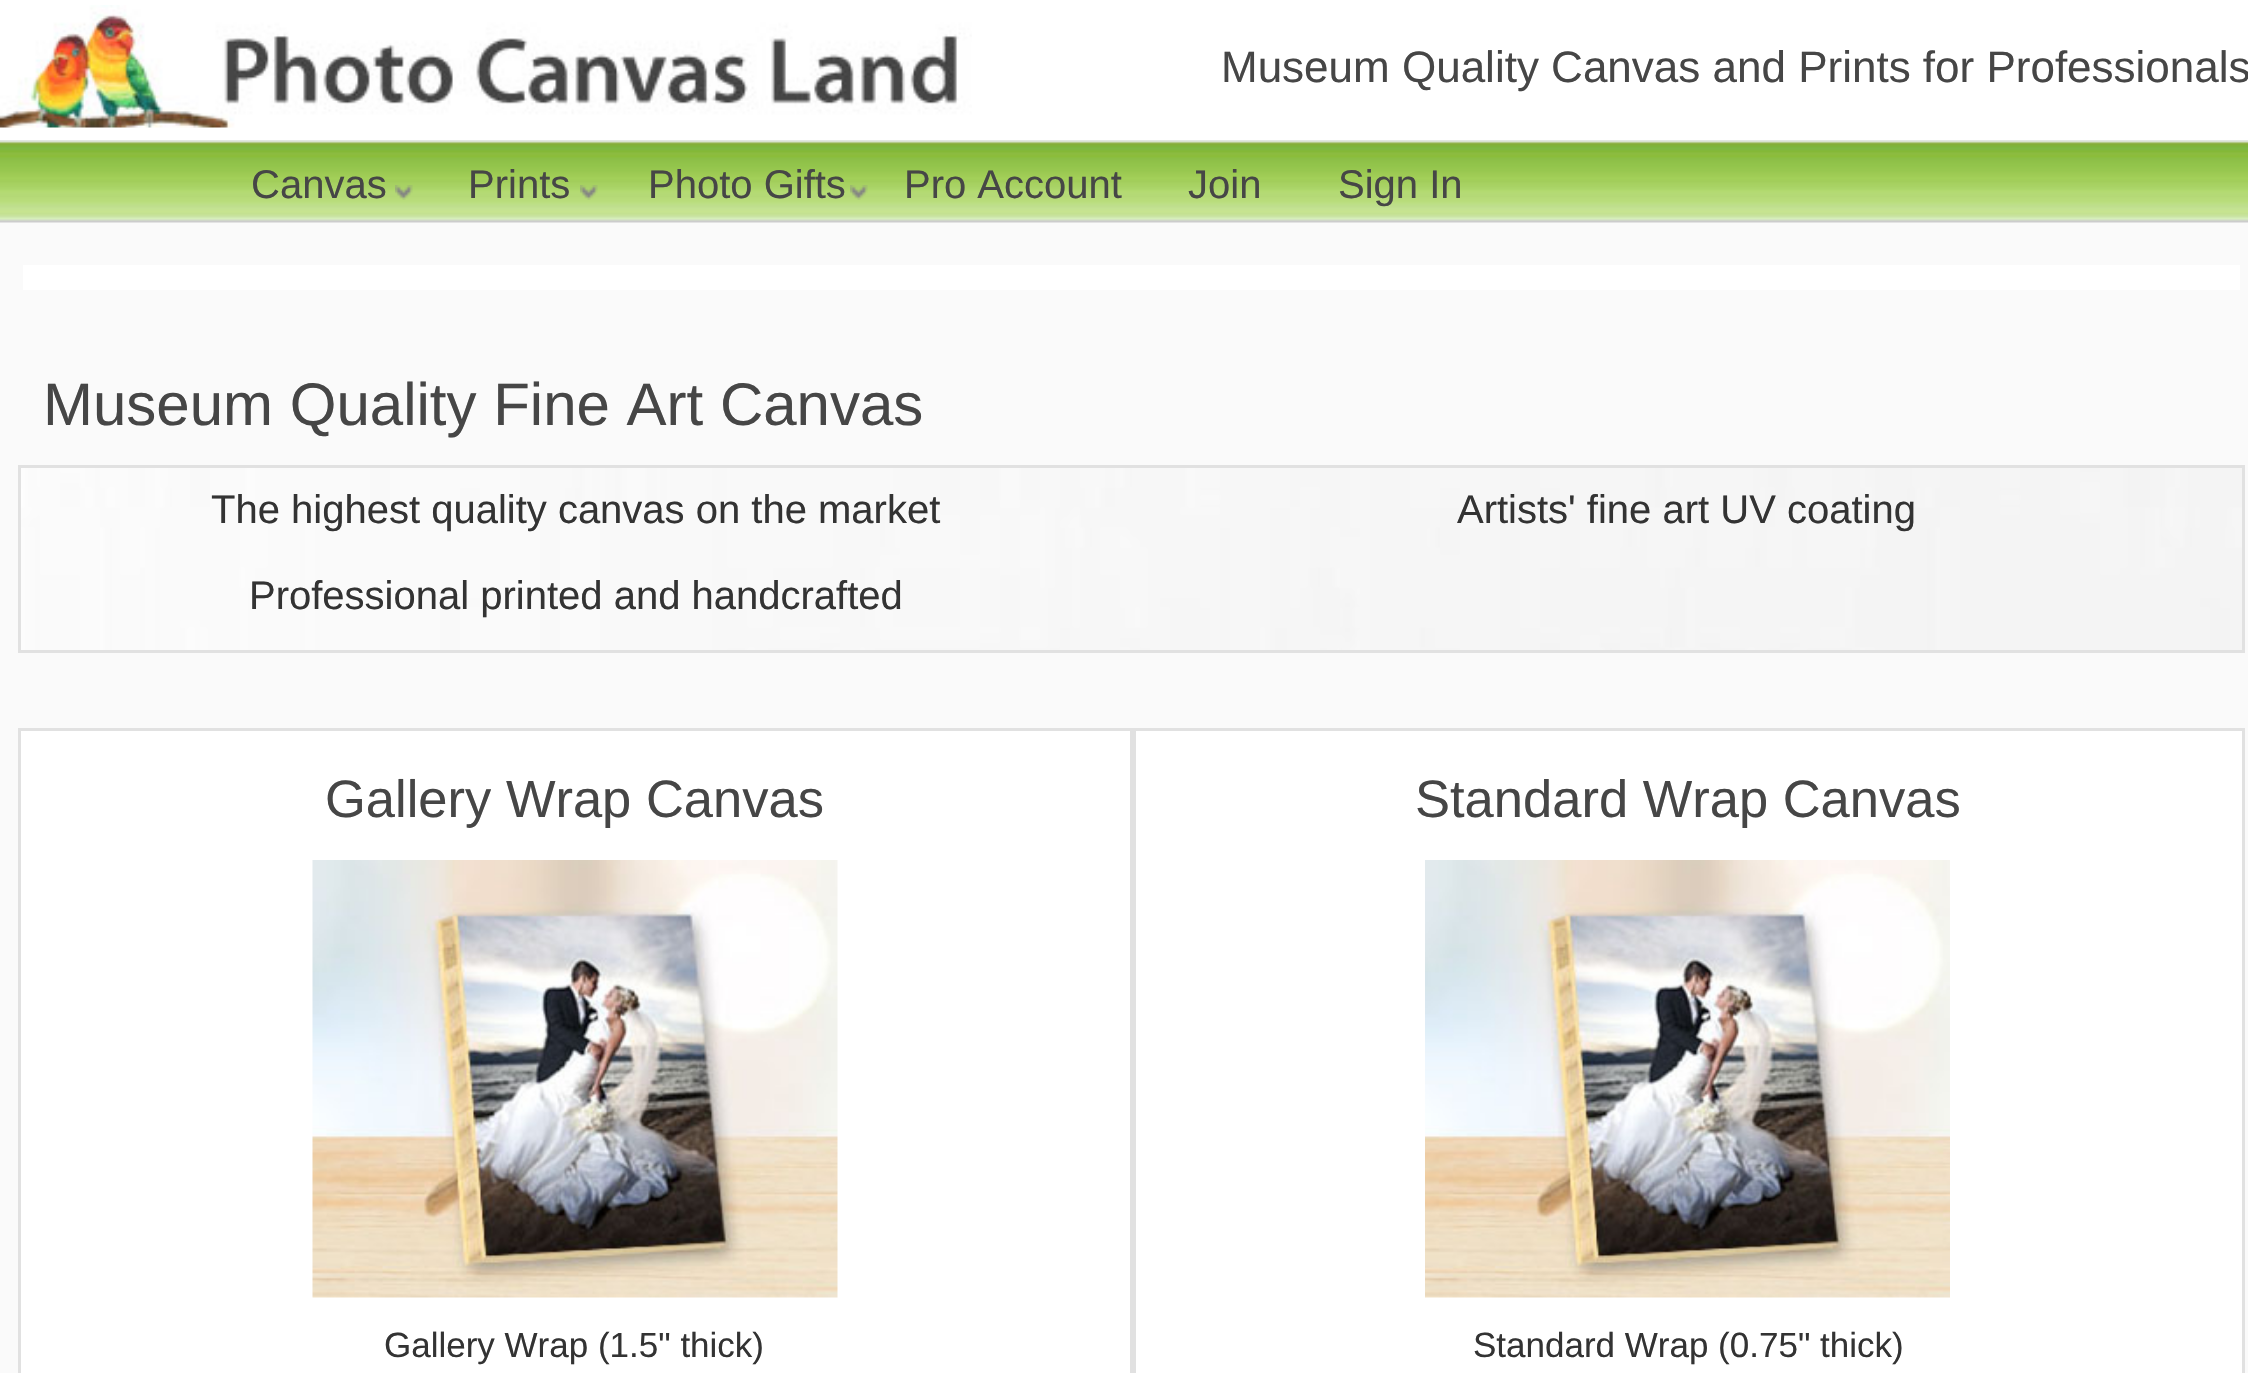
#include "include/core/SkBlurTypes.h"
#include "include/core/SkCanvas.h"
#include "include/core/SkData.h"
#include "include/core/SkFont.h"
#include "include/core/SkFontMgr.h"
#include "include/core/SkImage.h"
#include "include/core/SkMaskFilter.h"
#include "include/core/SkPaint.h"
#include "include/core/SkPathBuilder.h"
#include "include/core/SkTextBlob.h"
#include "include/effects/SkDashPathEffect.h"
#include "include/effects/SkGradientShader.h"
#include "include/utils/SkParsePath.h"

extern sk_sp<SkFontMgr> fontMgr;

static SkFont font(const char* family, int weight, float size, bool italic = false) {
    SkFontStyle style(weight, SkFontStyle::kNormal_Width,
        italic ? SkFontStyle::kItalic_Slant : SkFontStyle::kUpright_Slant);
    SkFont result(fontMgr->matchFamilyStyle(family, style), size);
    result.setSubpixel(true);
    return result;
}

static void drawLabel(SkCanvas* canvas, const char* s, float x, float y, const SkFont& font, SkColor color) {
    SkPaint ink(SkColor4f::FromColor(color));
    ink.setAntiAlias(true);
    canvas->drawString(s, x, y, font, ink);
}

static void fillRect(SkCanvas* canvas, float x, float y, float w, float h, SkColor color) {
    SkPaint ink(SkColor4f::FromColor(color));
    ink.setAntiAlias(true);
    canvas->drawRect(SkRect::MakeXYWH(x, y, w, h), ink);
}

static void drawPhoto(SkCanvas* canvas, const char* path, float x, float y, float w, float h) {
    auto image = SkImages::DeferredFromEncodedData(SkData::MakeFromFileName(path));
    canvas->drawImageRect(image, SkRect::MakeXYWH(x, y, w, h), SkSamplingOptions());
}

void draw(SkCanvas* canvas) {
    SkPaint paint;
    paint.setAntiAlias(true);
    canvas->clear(0xFFFAFAFA);
    fillRect(canvas, 0, 0, 2248, 140, 0xFFFFFFFF);
    drawPhoto(canvas, "assets/img1.png", 0, 5, 972, 123);
    SkFont font1 = font("Liberation Sans", 400, 44);
    drawLabel(canvas, "Museum Quality Canvas and Prints for Professionals", 1221, 82, font1, 0xFF464646);
    drawPhoto(canvas, "assets/img2.png", 0, 140, 2248, 83);
    SkFont font2 = font("Liberation Sans", 400, 40);
    drawLabel(canvas, "Canvas", 251, 198, font2, 0xFF464646);
    drawPhoto(canvas, "assets/img3.png", 395, 185, 18, 15);
    drawLabel(canvas, "Prints", 468, 198, font2, 0xFF464646);
    drawPhoto(canvas, "assets/img4.png", 580, 185, 18, 15);
    drawLabel(canvas, "Photo Gifts", 648, 198, font2, 0xFF464646);
    drawPhoto(canvas, "assets/img3.png", 850, 185, 18, 15);
    drawLabel(canvas, "Pro Account", 904, 198, font2, 0xFF464646);
    drawLabel(canvas, "Join", 1188, 198, font2, 0xFF464646);
    drawLabel(canvas, "Sign In", 1338, 198, font2, 0xFF464646);
    fillRect(canvas, 23, 265, 2217, 25, 0xFFFFFFFF);
    SkFont font3 = font("Liberation Sans", 400, 60);
    drawLabel(canvas, "Museum Quality Fine Art Canvas", 43, 425, font3, 0xFF464646);
    drawPhoto(canvas, "assets/img5.png", 21, 468, 2221, 182);
    paint.setStroke(true);
    paint.setStrokeWidth(3);
    paint.setColor(0xFFE1E1E1);
    canvas->drawRect(SkRect::MakeXYWH(19.5f, 466.5f, 2224, 185), paint);
    drawLabel(canvas, "The highest quality canvas on the market", 211, 523, font2, 0xFF333333);
    drawLabel(canvas, "Artists' fine art UV coating", 1457, 523, font2, 0xFF333333);
    drawLabel(canvas, "Professional printed and handcrafted", 249, 609, font2, 0xFF333333);
    paint.setStroke(false);
    paint.setColor(0xFFFFFFFF);
    canvas->drawRect(SkRect::MakeXYWH(19.5f, 729.5f, 1112, 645), paint);
    paint.setStroke(true);
    paint.setColor(0xFFE1E1E1);
    canvas->drawRect(SkRect::MakeXYWH(19.5f, 729.5f, 1112, 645), paint);
    SkFont font4 = font("Liberation Sans", 400, 52.5f);
    drawLabel(canvas, "Gallery Wrap Canvas", 325, 817, font4, 0xFF464646);
    drawPhoto(canvas, "assets/img6.png", 312, 860, 526, 438);
    SkFont font5 = font("Liberation Sans", 400, 35);
    drawLabel(canvas, "Gallery Wrap (1.5\" thick)", 384, 1357, font5, 0xFF333333);
    paint.setStroke(false);
    paint.setColor(0xFFFFFFFF);
    canvas->drawRect(SkRect::MakeXYWH(1134.5f, 729.5f, 1109, 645), paint);
    paint.setStroke(true);
    paint.setColor(0xFFE1E1E1);
    canvas->drawRect(SkRect::MakeXYWH(1134.5f, 729.5f, 1109, 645), paint);
    drawLabel(canvas, "Standard Wrap Canvas", 1415, 817, font4, 0xFF464646);
    drawPhoto(canvas, "assets/img7.png", 1425, 860, 525, 438);
    drawLabel(canvas, "Standard Wrap (0.75\" thick)", 1473, 1357, font5, 0xFF333333);
}
